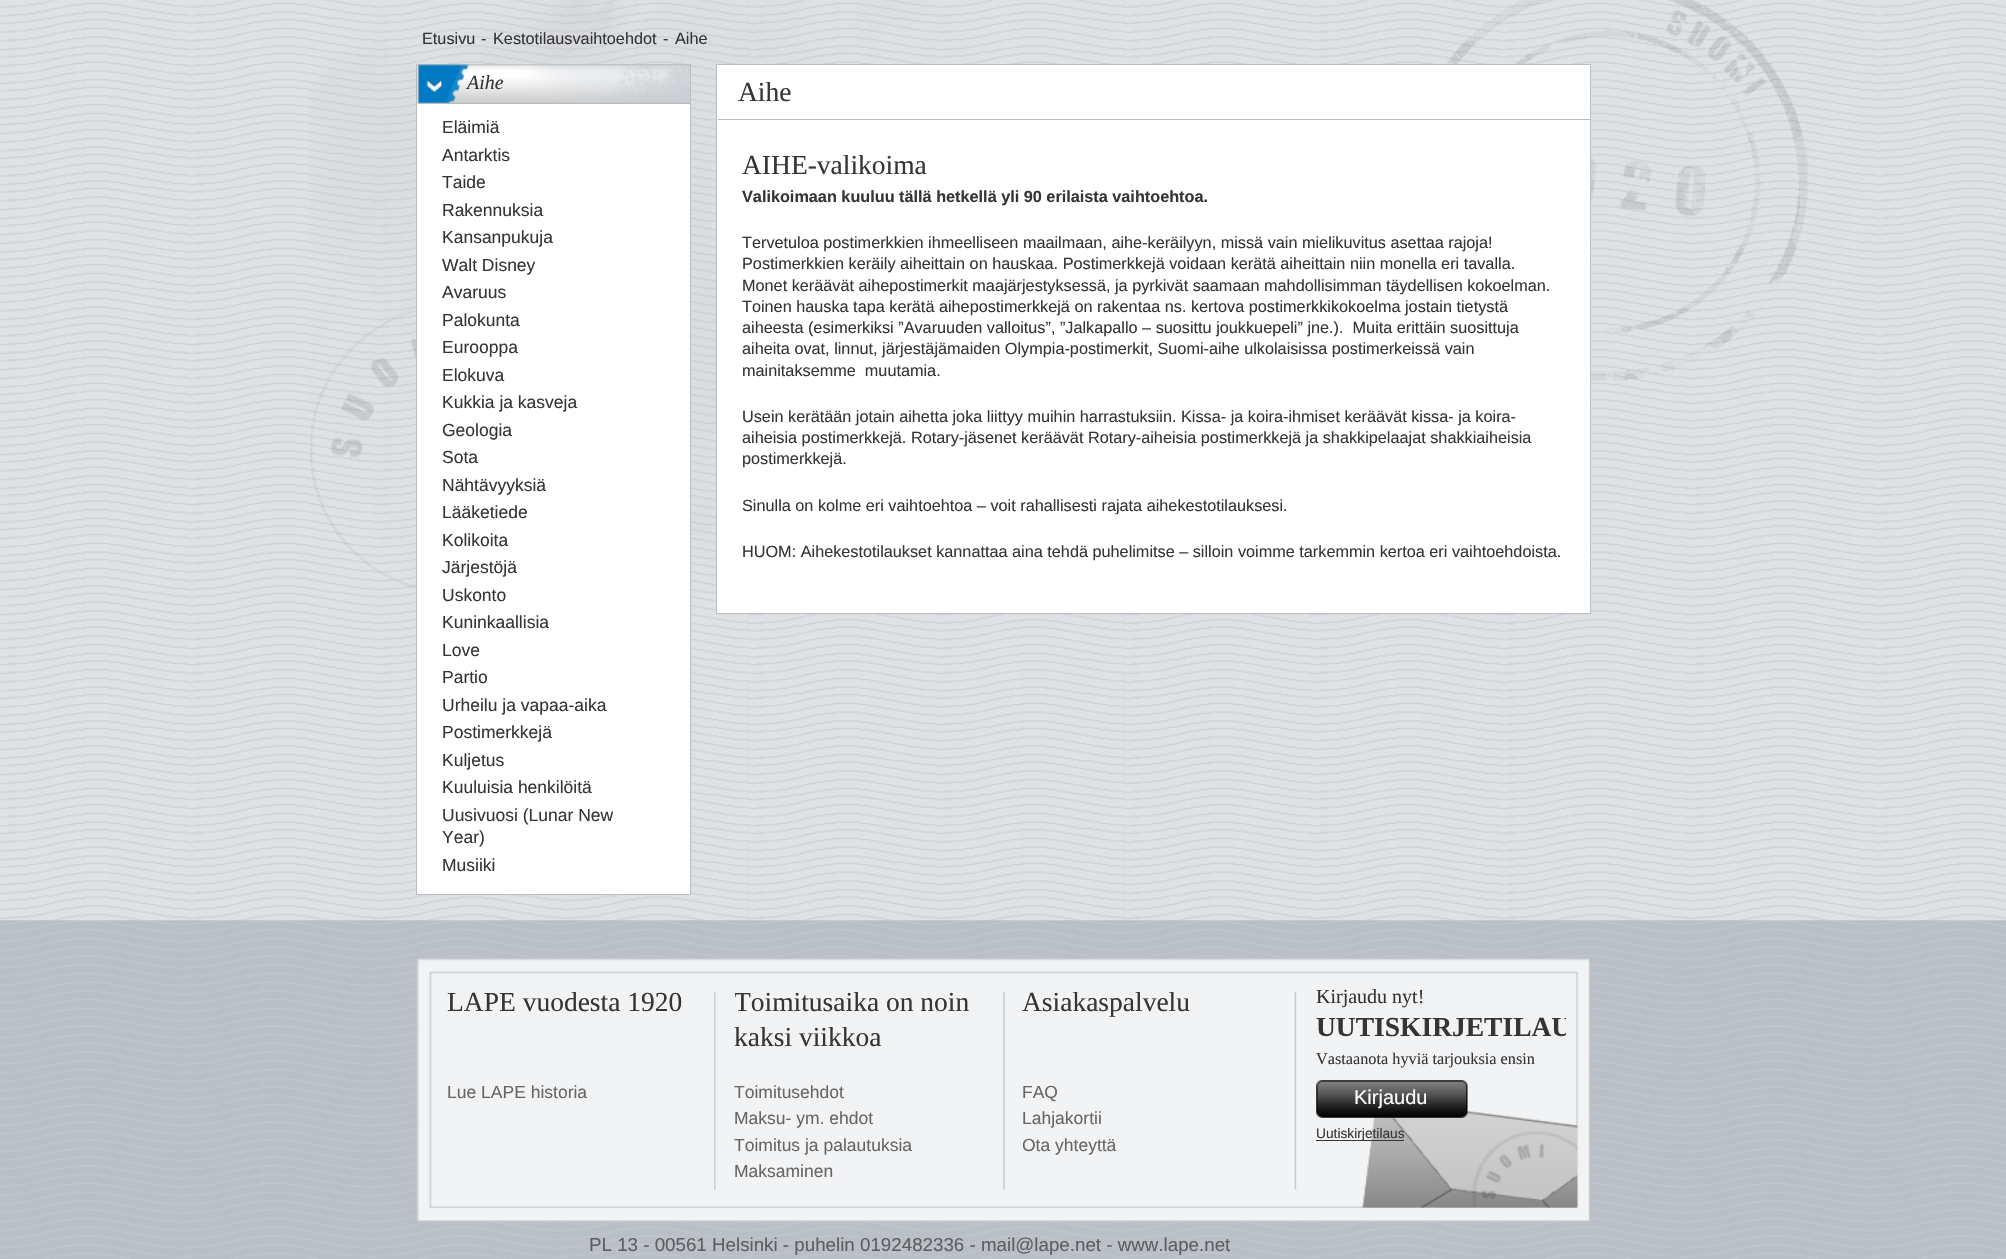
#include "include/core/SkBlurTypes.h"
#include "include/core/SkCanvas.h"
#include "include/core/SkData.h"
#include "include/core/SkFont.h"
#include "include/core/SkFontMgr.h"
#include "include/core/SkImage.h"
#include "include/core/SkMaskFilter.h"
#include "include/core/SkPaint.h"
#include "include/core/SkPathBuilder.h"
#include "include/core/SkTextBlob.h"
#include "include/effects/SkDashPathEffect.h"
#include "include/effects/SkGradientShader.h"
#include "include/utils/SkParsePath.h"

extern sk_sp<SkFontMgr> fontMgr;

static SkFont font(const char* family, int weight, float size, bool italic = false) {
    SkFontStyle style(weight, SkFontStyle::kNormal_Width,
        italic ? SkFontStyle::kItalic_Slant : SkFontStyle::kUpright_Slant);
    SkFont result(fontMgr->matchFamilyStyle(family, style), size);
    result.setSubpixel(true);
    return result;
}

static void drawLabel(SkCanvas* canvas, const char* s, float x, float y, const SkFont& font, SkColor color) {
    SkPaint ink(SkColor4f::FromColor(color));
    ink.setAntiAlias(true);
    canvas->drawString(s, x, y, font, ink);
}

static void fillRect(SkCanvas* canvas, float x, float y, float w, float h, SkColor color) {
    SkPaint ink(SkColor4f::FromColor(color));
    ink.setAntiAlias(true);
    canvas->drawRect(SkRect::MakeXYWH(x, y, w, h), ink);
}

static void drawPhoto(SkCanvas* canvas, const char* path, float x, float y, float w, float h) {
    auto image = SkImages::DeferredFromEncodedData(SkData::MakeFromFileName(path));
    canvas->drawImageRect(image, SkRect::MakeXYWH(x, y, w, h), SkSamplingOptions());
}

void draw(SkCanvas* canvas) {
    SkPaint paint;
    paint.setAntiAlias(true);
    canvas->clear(0xFFFFFFFF);
    drawPhoto(canvas, "assets/img1.png", 0, 0, 2006, 1259);
    drawPhoto(canvas, "assets/img2.png", 310, 0, 1499, 594);
    SkFont font1 = font("Liberation Sans", 400, 16.25f);
    drawLabel(canvas, "Etusivu", 422, 44, font1, 0xFF353535);
    drawLabel(canvas, "-", 481, 44, font1, 0xFF353535);
    drawLabel(canvas, "Kestotilausvaihtoehdot", 493, 44, font1, 0xFF353535);
    drawLabel(canvas, "-", 663, 44, font1, 0xFF353535);
    drawLabel(canvas, "Aihe", 675, 44, font1, 0xFF353535);
    fillRect(canvas, 417, 64, 273, 830, 0xFFFFFFFF);
    fillRect(canvas, 690, 64, 1, 831, 0xFFBABDC1);
    fillRect(canvas, 416, 894, 275, 1, 0xFFBABDC1);
    fillRect(canvas, 416, 64, 1, 831, 0xFFBABDC1);
    drawPhoto(canvas, "assets/img3.png", 417, 64, 273, 40);
    drawPhoto(canvas, "assets/img4.png", 426, 79, 17, 13);
    SkFont font2 = font("Liberation Serif", 400, 20, true);
    drawLabel(canvas, "Aihe", 467, 89, font2, 0xFF353535);
    SkFont font3 = font("Liberation Sans", 400, 17.5f);
    drawLabel(canvas, "Eläimiä", 442, 133, font3, 0xFF353535);
    drawLabel(canvas, "Antarktis", 442, 161, font3, 0xFF353535);
    drawLabel(canvas, "Taide", 442, 188, font3, 0xFF353535);
    drawLabel(canvas, "Rakennuksia", 442, 216, font3, 0xFF353535);
    drawLabel(canvas, "Kansanpukuja", 442, 243, font3, 0xFF353535);
    drawLabel(canvas, "Walt Disney", 442, 271, font3, 0xFF353535);
    drawLabel(canvas, "Avaruus", 442, 298, font3, 0xFF353535);
    drawLabel(canvas, "Palokunta", 442, 326, font3, 0xFF353535);
    drawLabel(canvas, "Eurooppa", 442, 353, font3, 0xFF353535);
    drawLabel(canvas, "Elokuva", 442, 381, font3, 0xFF353535);
    drawLabel(canvas, "Kukkia ja kasveja", 442, 408, font3, 0xFF353535);
    drawLabel(canvas, "Geologia", 442, 436, font3, 0xFF353535);
    drawLabel(canvas, "Sota", 442, 463, font3, 0xFF353535);
    drawLabel(canvas, "Nähtävyyksiä", 442, 491, font3, 0xFF353535);
    drawLabel(canvas, "Lääketiede", 442, 518, font3, 0xFF353535);
    drawLabel(canvas, "Kolikoita", 442, 546, font3, 0xFF353535);
    drawLabel(canvas, "Järjestöjä", 442, 573, font3, 0xFF353535);
    drawLabel(canvas, "Uskonto", 442, 601, font3, 0xFF353535);
    drawLabel(canvas, "Kuninkaallisia", 442, 628, font3, 0xFF353535);
    drawLabel(canvas, "Love", 442, 656, font3, 0xFF353535);
    drawLabel(canvas, "Partio", 442, 683, font3, 0xFF353535);
    drawLabel(canvas, "Urheilu ja vapaa-aika", 442, 711, font3, 0xFF353535);
    drawLabel(canvas, "Postimerkkejä", 442, 738, font3, 0xFF353535);
    drawLabel(canvas, "Kuljetus", 442, 766, font3, 0xFF353535);
    drawLabel(canvas, "Kuuluisia henkilöitä", 442, 793, font3, 0xFF353535);
    drawLabel(canvas, "Uusivuosi (Lunar New", 442, 821, font3, 0xFF353535);
    drawLabel(canvas, "Year)", 442, 843, font3, 0xFF353535);
    drawLabel(canvas, "Musiiki", 442, 871, font3, 0xFF353535);
    paint.setColor(0xFFFFFFFF);
    canvas->drawRect(SkRect::MakeXYWH(716.5f, 64.5f, 874, 549), paint);
    paint.setStroke(true);
    paint.setStrokeWidth(1);
    paint.setColor(0xFFBABDC1);
    canvas->drawRect(SkRect::MakeXYWH(716.5f, 64.5f, 874, 549), paint);
    fillRect(canvas, 718, 119, 872, 1, 0xFFBABDC1);
    SkFont font4 = font("Liberation Serif", 400, 27.5f);
    drawLabel(canvas, "Aihe", 738, 101, font4, 0xFF353535);
    drawLabel(canvas, "AIHE-valikoima", 742, 174, font4, 0xFF353535);
    SkFont font5 = font("Liberation Sans", 700, 16.25f);
    drawLabel(canvas, "Valikoimaan kuuluu tällä hetkellä yli 90 erilaista vaihtoehtoa.", 742, 202, font5, 0xFF353535);
    drawLabel(canvas, "Tervetuloa postimerkkien ihmeelliseen maailmaan, aihe-keräilyyn, missä vain mielikuvitus asettaa rajoja!", 742, 248, font1, 0xFF353535);
    drawLabel(canvas, "Postimerkkien keräily aiheittain on hauskaa. Postimerkkejä voidaan kerätä aiheittain niin monella eri tavalla.", 742, 269, font1, 0xFF353535);
    drawLabel(canvas, "Monet keräävät aihepostimerkit maajärjestyksessä, ja pyrkivät saamaan mahdollisimman täydellisen kokoelman.", 742, 291, font1, 0xFF353535);
    drawLabel(canvas, "Toinen hauska tapa kerätä aihepostimerkkejä on rakentaa ns. kertova postimerkkikokoelma jostain tietystä", 742, 312, font1, 0xFF353535);
    drawLabel(canvas, "aiheesta (esimerkiksi ”Avaruuden valloitus”, ”Jalkapallo – suosittu joukkuepeli” jne.).  Muita erittäin suosittuja", 742, 333, font1, 0xFF353535);
    drawLabel(canvas, "aiheita ovat, linnut, järjestäjämaiden Olympia-postimerkit, Suomi-aihe ulkolaisissa postimerkeissä vain", 742, 354, font1, 0xFF353535);
    drawLabel(canvas, "mainitaksemme  muutamia.", 742, 376, font1, 0xFF353535);
    drawLabel(canvas, "Usein kerätään jotain aihetta joka liittyy muihin harrastuksiin. Kissa- ja koira-ihmiset keräävät kissa- ja koira-", 742, 422, font1, 0xFF353535);
    drawLabel(canvas, "aiheisia postimerkkejä. Rotary-jäsenet keräävät Rotary-aiheisia postimerkkejä ja shakkipelaajat shakkiaiheisia", 742, 443, font1, 0xFF353535);
    drawLabel(canvas, "postimerkkejä.", 742, 464, font1, 0xFF353535);
    drawLabel(canvas, "Sinulla on kolme eri vaihtoehtoa – voit rahallisesti rajata aihekestotilauksesi.", 742, 511, font1, 0xFF353535);
    drawLabel(canvas, "HUOM: Aihekestotilaukset kannattaa aina tehdä puhelimitse – silloin voimme tarkemmin kertoa eri vaihtoehdoista.", 742, 557, font1, 0xFF353535);
    drawPhoto(canvas, "assets/img5.png", 0, 920, 2006, 339);
    drawPhoto(canvas, "assets/img6.png", 416, 958, 1174, 264);
    drawLabel(canvas, "LAPE vuodesta 1920", 447, 1011, font4, 0xFF353535);
    drawLabel(canvas, "Lue LAPE historia", 447, 1098, font3, 0xFF666666);
    canvas->save();
    canvas->clipRect(SkRect::MakeXYWH(735, 985, 263, 70));
    drawLabel(canvas, "Toimitusaika on noin", 734, 1011, font4, 0xFF353535);
    canvas->restore();
    drawLabel(canvas, "kaksi viikkoa", 734, 1046, font4, 0xFF353535);
    drawLabel(canvas, "Toimitusehdot", 734, 1098, font3, 0xFF666666);
    drawLabel(canvas, "Maksu- ym. ehdot", 734, 1124, font3, 0xFF666666);
    drawLabel(canvas, "Toimitus ja palautuksia", 734, 1151, font3, 0xFF666666);
    drawLabel(canvas, "Maksaminen", 734, 1177, font3, 0xFF666666);
    drawLabel(canvas, "Asiakaspalvelu", 1022, 1011, font4, 0xFF353535);
    drawLabel(canvas, "FAQ", 1022, 1098, font3, 0xFF666666);
    drawLabel(canvas, "Lahjakortii", 1022, 1124, font3, 0xFF666666);
    canvas->save();
    canvas->clipRect(SkRect::MakeXYWH(1023, 1080, 262, 106));
    drawLabel(canvas, "Ota yhteyttä", 1022, 1151, font3, 0xFF666666);
    canvas->restore();
    SkFont font6 = font("Liberation Serif", 400, 20);
    drawLabel(canvas, "Kirjaudu nyt!", 1316, 1003, font6, 0xFF353535);
    canvas->save();
    canvas->clipRect(SkRect::MakeXYWH(1316, 985, 250, 63));
    SkFont font7 = font("Liberation Serif", 700, 27.5f);
    drawLabel(canvas, "UUTISKIRJETILAU", 1316, 1036, font7, 0xFF353535);
    canvas->restore();
    SkFont font8 = font("Liberation Serif", 400, 16.25f);
    drawLabel(canvas, "Vastaanota hyviä tarjouksia ensin", 1316, 1064, font8, 0xFF353535);
    drawPhoto(canvas, "assets/img7.png", 1316, 1080, 144, 38);
    SkFont font9 = font("Liberation Sans", 400, 20);
    drawLabel(canvas, "Kirjaudu", 1354, 1104, font9, 0xFFFFFFFF);
    drawPhoto(canvas, "assets/img8.png", 1460, 1080, 8, 38);
    fillRect(canvas, 1316, 1140, 88, 1, 0xFF353535);
    SkFont font10 = font("Liberation Sans", 400, 13.75f);
    drawLabel(canvas, "Uutiskirjetilaus", 1316, 1138, font10, 0xFF353535);
    SkFont font11 = font("Liberation Sans", 400, 18.75f);
    drawLabel(canvas, "PL 13 - 00561 Helsinki - puhelin 0192482336 - mail@lape.net - www.lape.net", 589, 1251, font11, 0xFF5E5E5E);
}
